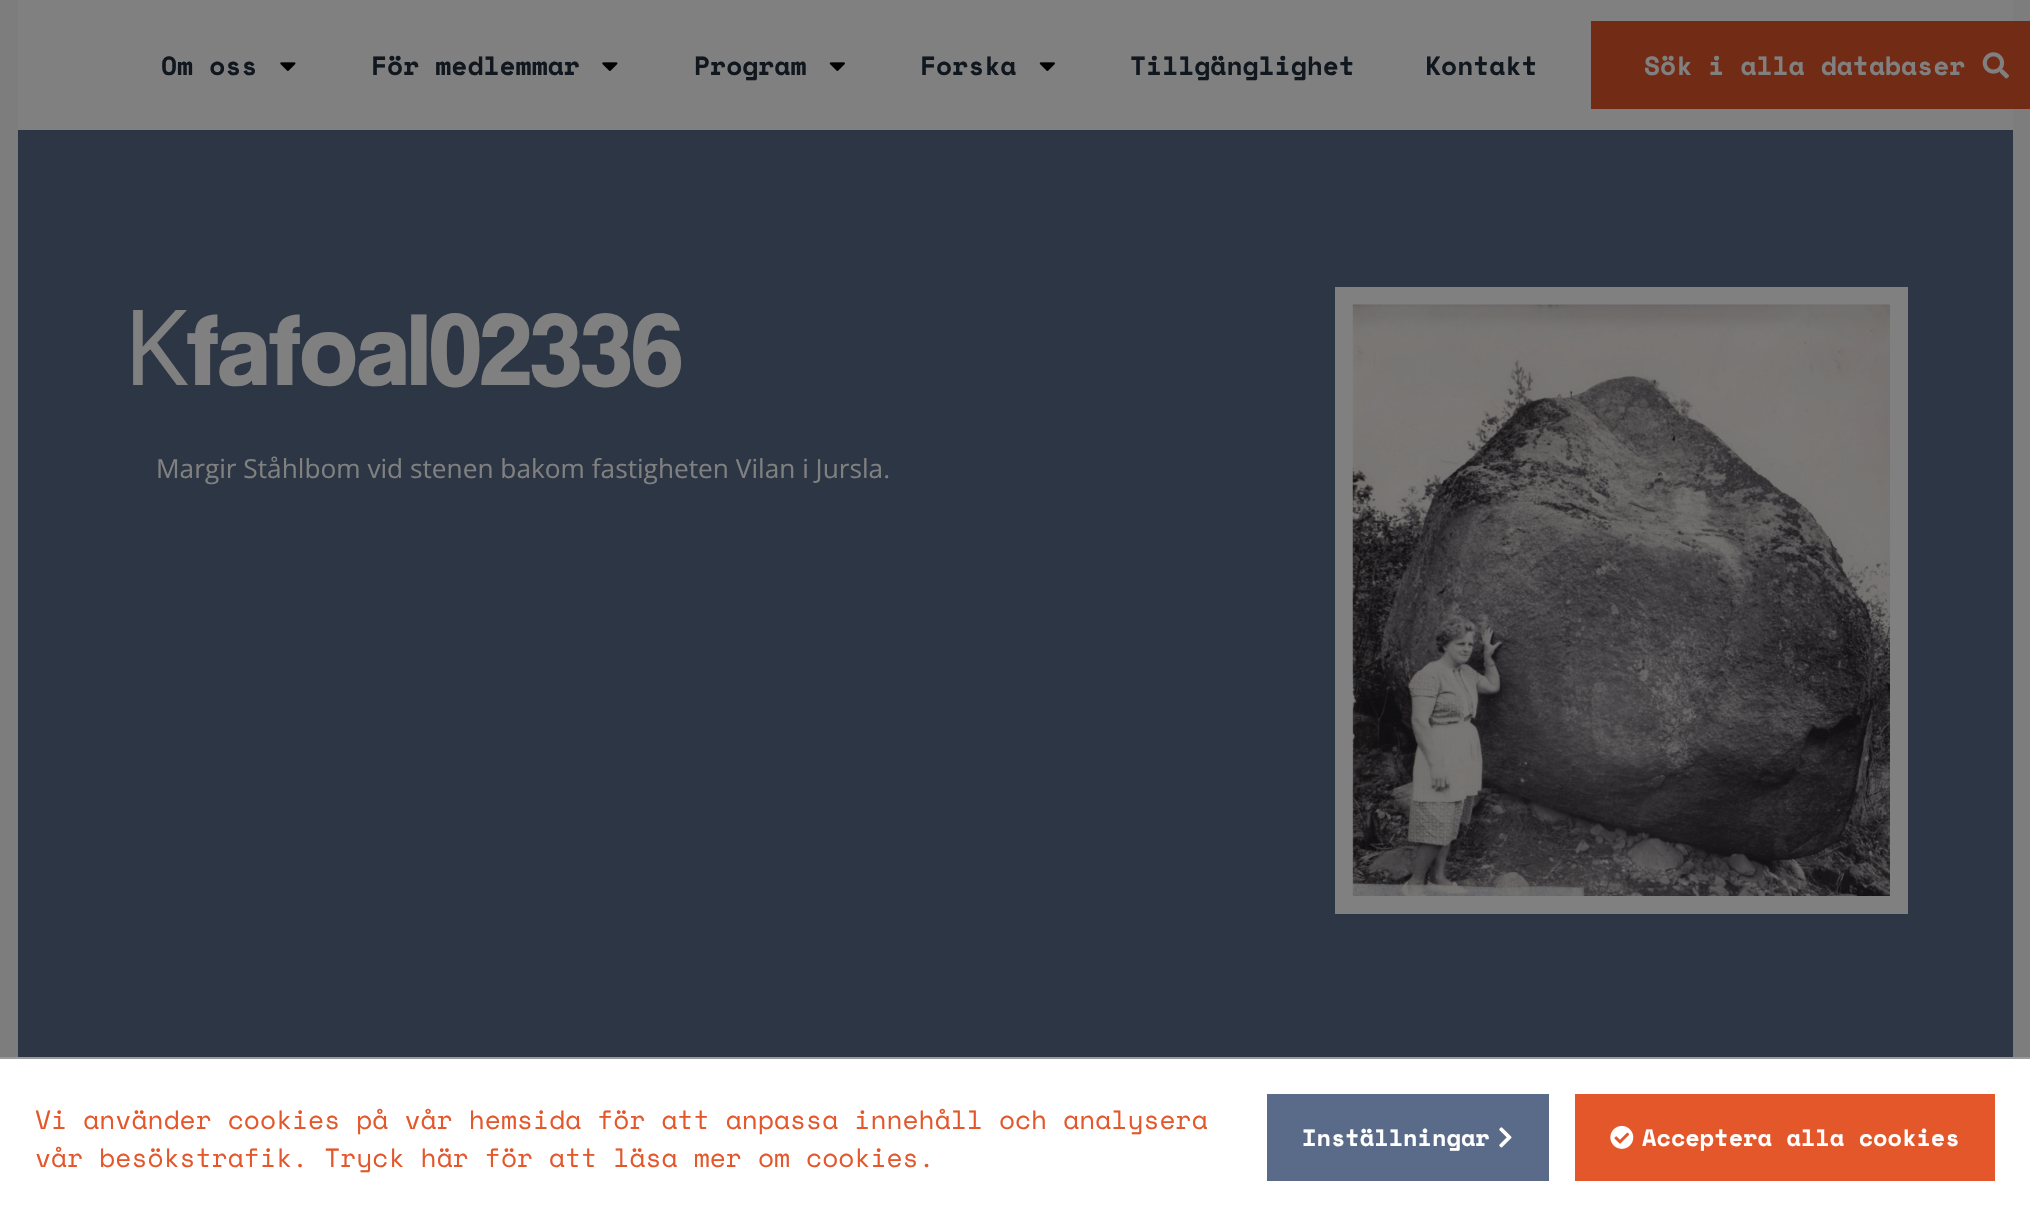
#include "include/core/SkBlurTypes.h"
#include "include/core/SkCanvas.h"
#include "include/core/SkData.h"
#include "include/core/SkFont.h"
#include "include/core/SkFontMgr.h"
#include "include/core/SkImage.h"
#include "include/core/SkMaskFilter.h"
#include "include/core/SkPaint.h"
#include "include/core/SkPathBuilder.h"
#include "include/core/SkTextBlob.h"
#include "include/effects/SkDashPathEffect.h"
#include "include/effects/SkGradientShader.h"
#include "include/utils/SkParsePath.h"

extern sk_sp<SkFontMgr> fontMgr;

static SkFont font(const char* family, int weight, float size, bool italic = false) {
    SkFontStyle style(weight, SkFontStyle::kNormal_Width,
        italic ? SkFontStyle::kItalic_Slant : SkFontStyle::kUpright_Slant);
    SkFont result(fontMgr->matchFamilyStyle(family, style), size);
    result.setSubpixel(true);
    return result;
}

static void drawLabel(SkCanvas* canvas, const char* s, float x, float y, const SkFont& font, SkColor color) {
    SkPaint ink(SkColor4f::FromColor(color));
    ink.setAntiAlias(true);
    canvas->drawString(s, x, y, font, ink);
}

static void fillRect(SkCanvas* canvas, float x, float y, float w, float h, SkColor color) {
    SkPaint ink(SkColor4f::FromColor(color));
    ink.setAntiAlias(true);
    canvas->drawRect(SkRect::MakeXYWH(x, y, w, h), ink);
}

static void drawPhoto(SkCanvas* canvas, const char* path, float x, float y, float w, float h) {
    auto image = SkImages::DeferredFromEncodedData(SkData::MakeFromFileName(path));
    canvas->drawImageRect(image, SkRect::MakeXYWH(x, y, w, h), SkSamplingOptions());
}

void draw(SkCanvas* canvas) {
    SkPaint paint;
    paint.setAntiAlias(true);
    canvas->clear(0xFF7D7D7D);
    fillRect(canvas, 18, 0, 1995, 130, 0xFF808080);
    SkFont font1 = font("Space Mono", 700, 26.25f);
    drawLabel(canvas, "Om oss", 161, 75, font1, 0xFF10171E);
    drawPhoto(canvas, "assets/img1.png", 280, 62, 16, 9);
    drawLabel(canvas, "För medlemmar", 371, 75, font1, 0xFF10171E);
    drawPhoto(canvas, "assets/img1.png", 602, 62, 16, 9);
    drawLabel(canvas, "Program", 694, 75, font1, 0xFF10171E);
    drawPhoto(canvas, "assets/img2.png", 829, 62, 16, 9);
    drawLabel(canvas, "Forska", 920, 75, font1, 0xFF10171E);
    drawPhoto(canvas, "assets/img2.png", 1039, 62, 16, 9);
    drawLabel(canvas, "Tillgänglighet", 1130, 75, font1, 0xFF10171E);
    drawLabel(canvas, "Kontakt", 1425, 75, font1, 0xFF10171E);
    fillRect(canvas, 1591, 21, 439, 88, 0xFF722C16);
    drawLabel(canvas, "Sök i alla databaser", 1644, 75, font1, 0xFF808080);
    drawPhoto(canvas, "assets/img3.png", 1982, 52, 27, 27);
    fillRect(canvas, 18, 130, 1995, 927, 0xFF2D3644);
    SkFont font2 = font("Noto Sans", 400, 105);
    drawLabel(canvas, "K", 123, 385, font2, 0xFF808080);
    SkFont font3 = font("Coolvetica", 700, 105);
    drawLabel(canvas, "fafoal02336", 187, 385, font3, 0xFF808080);
    SkFont font4 = font("Open Sans", 400, 26.25f);
    drawLabel(canvas, "Margir Ståhlbom vid stenen bakom fastigheten Vilan i Jursla.", 156, 478, font4, 0xFF808080);
    fillRect(canvas, 1335, 287, 573, 627, 0xFF808080);
    drawPhoto(canvas, "assets/img4.png", 1352, 304, 538, 592);
    fillRect(canvas, 0, 1059, 2030, 156, 0xFFFFFFFF);
    fillRect(canvas, 0, 1057, 2030, 2, 0xFF989999);
    SkFont font5 = font("Space Mono", 400, 26.25f);
    drawLabel(canvas, "Vi använder cookies på vår hemsida för att anpassa innehåll och analysera", 35, 1129, font5, 0xFFE3572B);
    drawLabel(canvas, "vår besökstrafik. Tryck här för att läsa mer om cookies.", 35, 1167, font5, 0xFFE3572B);
    fillRect(canvas, 1267, 1094, 282, 87, 0xFF596B88);
    SkFont font6 = font("Space Mono", 700, 23.6f);
    drawLabel(canvas, "Inställningar", 1302, 1146, font6, 0xFFFFFFFF);
    drawPhoto(canvas, "assets/img5.png", 1499, 1127, 13, 21);
    fillRect(canvas, 1575, 1094, 420, 87, 0xFFE3572B);
    drawPhoto(canvas, "assets/img6.png", 1610, 1125, 24, 24);
    drawLabel(canvas, "Acceptera alla cookies", 1642, 1146, font6, 0xFFFFFFFF);
}
